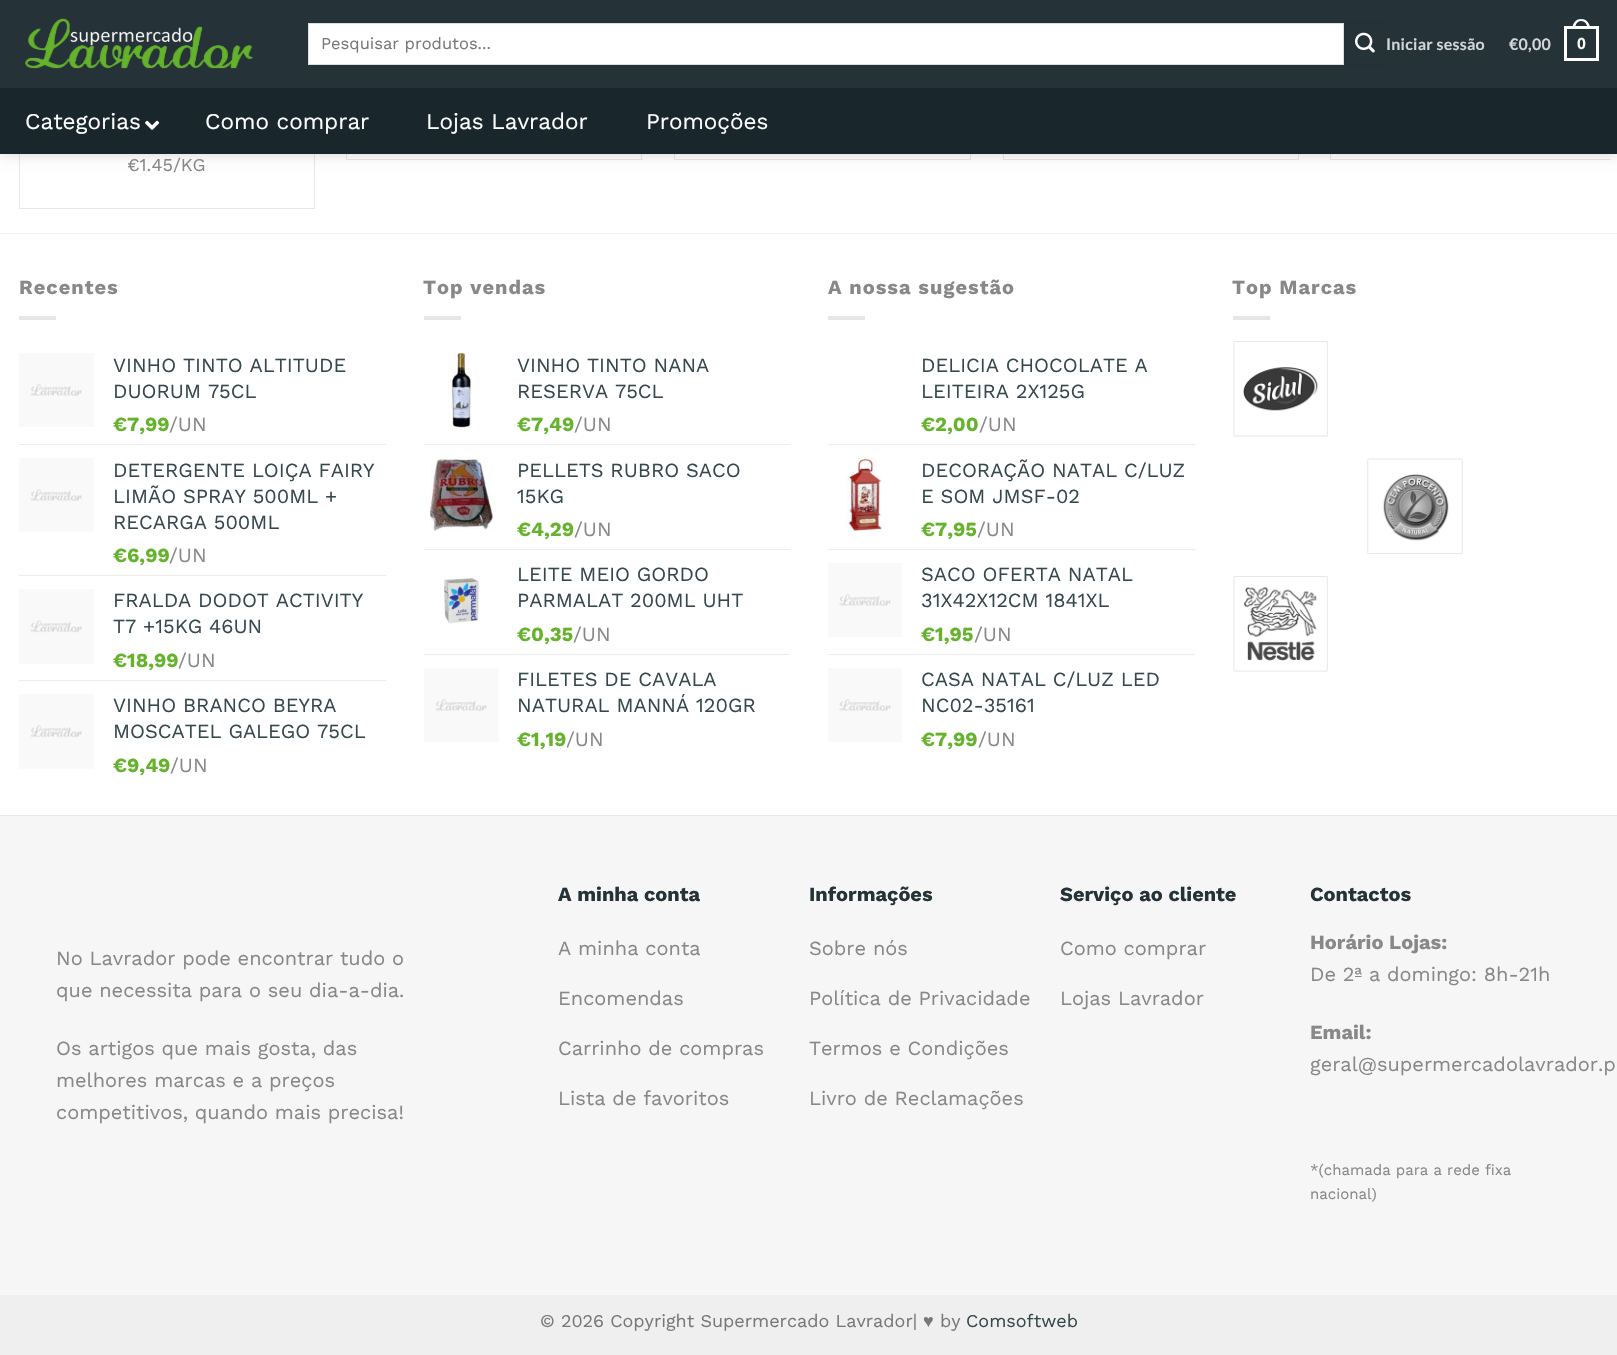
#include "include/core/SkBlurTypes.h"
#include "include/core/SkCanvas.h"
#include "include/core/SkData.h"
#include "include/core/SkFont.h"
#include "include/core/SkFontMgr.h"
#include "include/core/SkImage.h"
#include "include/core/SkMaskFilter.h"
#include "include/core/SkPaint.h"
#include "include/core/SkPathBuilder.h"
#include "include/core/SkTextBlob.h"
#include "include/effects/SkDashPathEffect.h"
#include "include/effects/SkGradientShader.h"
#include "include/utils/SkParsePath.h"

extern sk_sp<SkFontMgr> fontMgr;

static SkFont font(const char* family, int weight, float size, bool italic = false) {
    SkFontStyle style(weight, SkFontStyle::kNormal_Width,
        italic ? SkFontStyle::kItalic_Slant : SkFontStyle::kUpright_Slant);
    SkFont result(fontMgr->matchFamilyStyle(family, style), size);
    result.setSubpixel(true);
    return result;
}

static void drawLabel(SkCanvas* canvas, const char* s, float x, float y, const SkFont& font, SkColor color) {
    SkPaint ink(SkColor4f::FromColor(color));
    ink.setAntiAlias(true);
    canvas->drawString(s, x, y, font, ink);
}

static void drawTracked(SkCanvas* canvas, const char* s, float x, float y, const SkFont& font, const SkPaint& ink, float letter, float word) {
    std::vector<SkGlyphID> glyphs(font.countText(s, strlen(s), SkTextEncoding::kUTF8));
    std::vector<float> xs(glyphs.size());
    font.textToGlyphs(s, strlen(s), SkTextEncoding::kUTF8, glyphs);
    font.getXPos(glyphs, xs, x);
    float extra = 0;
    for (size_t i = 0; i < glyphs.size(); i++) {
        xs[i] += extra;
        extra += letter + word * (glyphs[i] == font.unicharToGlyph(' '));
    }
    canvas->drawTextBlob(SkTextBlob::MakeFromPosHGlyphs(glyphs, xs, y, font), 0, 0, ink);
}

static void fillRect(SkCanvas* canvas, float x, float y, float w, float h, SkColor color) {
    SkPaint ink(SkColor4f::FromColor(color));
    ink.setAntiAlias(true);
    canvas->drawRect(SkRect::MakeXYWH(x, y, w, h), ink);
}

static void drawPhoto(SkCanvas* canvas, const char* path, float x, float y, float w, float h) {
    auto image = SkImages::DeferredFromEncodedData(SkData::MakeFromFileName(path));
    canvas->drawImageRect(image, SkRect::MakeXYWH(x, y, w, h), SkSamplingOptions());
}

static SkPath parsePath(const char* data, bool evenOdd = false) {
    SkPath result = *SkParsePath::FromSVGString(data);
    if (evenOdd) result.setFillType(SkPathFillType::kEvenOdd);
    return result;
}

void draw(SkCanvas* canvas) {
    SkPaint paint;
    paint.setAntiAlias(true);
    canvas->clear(0xFFFFFFFF);
    fillRect(canvas, 314, 154, 1, 55, 0xFFE8E8E8);
    fillRect(canvas, 19, 208, 296, 1, 0xFFE8E8E8);
    fillRect(canvas, 19, 154, 1, 55, 0xFFE8E8E8);
    fillRect(canvas, 641, 154, 1, 6, 0xFFE8E8E8);
    fillRect(canvas, 346, 159, 297, 1, 0xFFE8E8E8);
    fillRect(canvas, 346, 154, 1, 6, 0xFFE8E8E8);
    fillRect(canvas, 970, 154, 1, 6, 0xFFE8E8E8);
    fillRect(canvas, 674, 159, 297, 1, 0xFFE8E8E8);
    fillRect(canvas, 674, 154, 1, 6, 0xFFE8E8E8);
    fillRect(canvas, 1298, 154, 1, 6, 0xFFE8E8E8);
    fillRect(canvas, 1003, 159, 296, 1, 0xFFE8E8E8);
    fillRect(canvas, 1003, 154, 1, 6, 0xFFE8E8E8);
    fillRect(canvas, 1330, 159, 281, 1, 0xFFE8E8E8);
    fillRect(canvas, 1330, 154, 1, 6, 0xFFE8E8E8);
    paint.setColor(0x26000000);
    paint.setMaskFilter(SkMaskFilter::MakeBlur(kNormal_SkBlurStyle, 6));
    canvas->drawRect(SkRect::MakeXYWH(1, 1, 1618, 154), paint);
    paint.setMaskFilter(nullptr);
    fillRect(canvas, 0, 0, 1617, 88, 0xFF253237);
    drawPhoto(canvas, "assets/img1.png", 25, 18, 228, 51);
    paint.setColor(0xFFFFFFFF);
    canvas->drawRect(SkRect::MakeXYWH(308.5f, 23.5f, 1035, 41), paint);
    paint.setStroke(true);
    paint.setStrokeWidth(1);
    paint.setColor(0xFFDDDDDD);
    canvas->drawRect(SkRect::MakeXYWH(308.5f, 23.5f, 1035, 41), paint);
    SkFont font1 = font("Work Sans", 400, 16.5f);
    drawLabel(canvas, "Pesquisar produtos...", 321, 49, font1, 0xFF787878);
    paint.setColor(0xFF233034);
    canvas->drawRect(SkRect::MakeXYWH(1344.5f, 23.5f, 41, 41), paint);
    drawPhoto(canvas, "assets/img2.png", 1355, 32, 20, 21);
    SkFont font2 = font("Lato", 700, 16);
    paint.setStroke(false);
    paint.setColor(0xFFD3D6D7);
    drawTracked(canvas, "Iniciar sessão", 1386, 50, font2, paint, 0.25f, 0);
    drawTracked(canvas, "€0,00", 1509, 50, font2, paint, 0.25f, 0);
    paint.setStroke(true);
    paint.setStrokeWidth(3);
    paint.setColor(0xFFFFFFFF);
    canvas->drawRect(SkRect::MakeXYWH(1565.5f, 27.5f, 32, 32), paint);
    paint.setStroke(false);
    canvas->drawPath(parsePath("M1581 19C1587 19 1590 23.5 1590 29H1572.5C1572.5 23.5 1575.5 19 1581 19ZM1581 21C1585.5 21 1587.5 25 1587.5 29H1575C1575 25 1577 21 1581 21Z", true), paint);
    SkFont font3 = font("Liberation Sans", 700, 16);
    drawTracked(canvas, "0", 1577, 49, font3, paint, 0.25f, 0);
    fillRect(canvas, 0, 88, 1617, 66, 0xFF19262B);
    SkFont font4 = font("Work Sans", 400, 22.5f);
    drawLabel(canvas, "Categorias", 25, 129, font4, 0xFFFFFFFF);
    drawPhoto(canvas, "assets/img3.png", 145, 120, 15, 10);
    drawLabel(canvas, "Como comprar", 205, 129, font4, 0xFFFFFFFF);
    drawLabel(canvas, "Lojas Lavrador", 426, 129, font4, 0xFFFFFFFF);
    drawLabel(canvas, "Promoções", 646, 129, font4, 0xFFFFFFFF);
    SkFont font5 = font("Work Sans", 400, 18);
    drawLabel(canvas, "€1.45/KG", 127, 171, font5, 0xFF888888);
    fillRect(canvas, 0, 233, 1617, 1, 0xFFF2F2F2);
    SkFont font6 = font("Work Sans", 700, 20);
    paint.setColor(0xFF888888);
    drawTracked(canvas, "Recentes", 19, 294, font6, paint, 1, 0);
    fillRect(canvas, 19, 316, 37, 4, 0xFFE6E6E6);
    drawPhoto(canvas, "assets/img4.png", 19, 353, 75, 74);
    SkFont font7 = font("Work Sans", 400, 20);
    drawLabel(canvas, "VINHO TINTO ALTITUDE", 113, 372, font7, 0xFF37484C);
    drawLabel(canvas, "DUORUM 75CL", 113, 398, font7, 0xFF37484C);
    drawLabel(canvas, "€7,99", 113, 431, font6, 0xFF65B32C);
    drawLabel(canvas, "/UN", 169, 431, font7, 0xFF888888);
    fillRect(canvas, 19, 444, 367, 1, 0xFFECECEC);
    drawPhoto(canvas, "assets/img4.png", 19, 458, 75, 74);
    drawLabel(canvas, "DETERGENTE LOIÇA FAIRY", 113, 477, font7, 0xFF37484C);
    drawLabel(canvas, "LIMÃO SPRAY 500ML +", 113, 503, font7, 0xFF37484C);
    drawLabel(canvas, "RECARGA 500ML", 113, 529, font7, 0xFF37484C);
    drawLabel(canvas, "€6,99", 113, 562, font6, 0xFF65B32C);
    drawLabel(canvas, "/UN", 169, 562, font7, 0xFF888888);
    fillRect(canvas, 19, 575, 367, 1, 0xFFECECEC);
    drawPhoto(canvas, "assets/img5.png", 19, 589, 75, 75);
    drawLabel(canvas, "FRALDA DODOT ACTIVITY", 113, 607, font7, 0xFF37484C);
    drawLabel(canvas, "T7 +15KG 46UN", 113, 633, font7, 0xFF37484C);
    drawLabel(canvas, "€18,99", 113, 667, font6, 0xFF65B32C);
    drawLabel(canvas, "/UN", 178, 667, font7, 0xFF888888);
    fillRect(canvas, 19, 680, 367, 1, 0xFFECECEC);
    drawPhoto(canvas, "assets/img5.png", 19, 694, 75, 75);
    drawLabel(canvas, "VINHO BRANCO BEYRA", 113, 712, font7, 0xFF37484C);
    drawLabel(canvas, "MOSCATEL GALEGO 75CL", 113, 738, font7, 0xFF37484C);
    drawLabel(canvas, "€9,49", 113, 772, font6, 0xFF65B32C);
    drawLabel(canvas, "/UN", 170, 772, font7, 0xFF888888);
    drawTracked(canvas, "Top vendas", 423, 294, font6, paint, 1, 0);
    fillRect(canvas, 424, 316, 37, 4, 0xFFE6E6E6);
    drawPhoto(canvas, "assets/img6.png", 448, 352, 24, 76);
    drawLabel(canvas, "VINHO TINTO NANA", 517, 372, font7, 0xFF37484C);
    drawLabel(canvas, "RESERVA 75CL", 517, 398, font7, 0xFF37484C);
    drawLabel(canvas, "€7,49", 517, 431, font6, 0xFF65B32C);
    drawLabel(canvas, "/UN", 574, 431, font7, 0xFF888888);
    fillRect(canvas, 424, 444, 366, 1, 0xFFECECEC);
    drawPhoto(canvas, "assets/img7.png", 429, 457, 67, 74);
    drawLabel(canvas, "PELLETS RUBRO SACO", 517, 477, font7, 0xFF37484C);
    drawLabel(canvas, "15KG", 517, 503, font7, 0xFF37484C);
    drawLabel(canvas, "€4,29", 517, 536, font6, 0xFF65B32C);
    drawLabel(canvas, "/UN", 574, 536, font7, 0xFF888888);
    fillRect(canvas, 424, 549, 366, 1, 0xFFECECEC);
    drawLabel(canvas, "LEITE MEIO GORDO", 517, 581, font7, 0xFF37484C);
    drawPhoto(canvas, "assets/img8.png", 444, 578, 35, 46);
    drawLabel(canvas, "PARMALAT 200ML UHT", 517, 607, font7, 0xFF37484C);
    drawLabel(canvas, "€0,35", 517, 641, font6, 0xFF65B32C);
    drawLabel(canvas, "/UN", 573, 641, font7, 0xFF888888);
    fillRect(canvas, 424, 654, 366, 1, 0xFFECECEC);
    drawPhoto(canvas, "assets/img4.png", 424, 668, 75, 74);
    drawLabel(canvas, "FILETES DE CAVALA", 517, 686, font7, 0xFF37484C);
    drawLabel(canvas, "NATURAL MANNÁ 120GR", 517, 712, font7, 0xFF37484C);
    drawLabel(canvas, "€1,19", 517, 746, font6, 0xFF65B32C);
    drawLabel(canvas, "/UN", 566, 746, font7, 0xFF888888);
    drawTracked(canvas, "A nossa sugestão", 828, 294, font6, paint, 1, 0);
    fillRect(canvas, 828, 316, 37, 4, 0xFFE6E6E6);
    drawLabel(canvas, "DELICIA CHOCOLATE A", 921, 372, font7, 0xFF37484C);
    drawLabel(canvas, "LEITEIRA 2X125G", 921, 398, font7, 0xFF37484C);
    drawLabel(canvas, "€2,00", 921, 431, font6, 0xFF65B32C);
    drawLabel(canvas, "/UN", 979, 431, font7, 0xFF888888);
    fillRect(canvas, 828, 444, 367, 1, 0xFFECECEC);
    drawPhoto(canvas, "assets/img9.png", 845, 457, 37, 76);
    drawLabel(canvas, "DECORAÇÃO NATAL C/LUZ", 921, 477, font7, 0xFF37484C);
    drawLabel(canvas, "E SOM JMSF-02", 921, 503, font7, 0xFF37484C);
    drawLabel(canvas, "€7,95", 921, 536, font6, 0xFF65B32C);
    drawLabel(canvas, "/UN", 977, 536, font7, 0xFF888888);
    fillRect(canvas, 828, 549, 367, 1, 0xFFECECEC);
    drawPhoto(canvas, "assets/img10.png", 828, 563, 74, 74);
    drawLabel(canvas, "SACO OFERTA NATAL", 921, 581, font7, 0xFF37484C);
    drawLabel(canvas, "31X42X12CM 1841XL", 921, 607, font7, 0xFF37484C);
    drawLabel(canvas, "€1,95", 921, 641, font6, 0xFF65B32C);
    drawLabel(canvas, "/UN", 974, 641, font7, 0xFF888888);
    fillRect(canvas, 828, 654, 367, 1, 0xFFECECEC);
    drawPhoto(canvas, "assets/img10.png", 828, 668, 74, 74);
    drawLabel(canvas, "CASA NATAL C/LUZ LED", 921, 686, font7, 0xFF37484C);
    drawLabel(canvas, "NC02-35161", 921, 712, font7, 0xFF37484C);
    drawLabel(canvas, "€7,99", 921, 746, font6, 0xFF65B32C);
    drawLabel(canvas, "/UN", 978, 746, font7, 0xFF888888);
    drawTracked(canvas, "Top Marcas", 1232, 294, font6, paint, 1, 0);
    fillRect(canvas, 1233, 316, 37, 4, 0xFFE6E6E6);
    drawPhoto(canvas, "assets/img11.png", 1233, 341, 95, 96);
    drawPhoto(canvas, "assets/img12.png", 1233, 576, 95, 96);
    drawPhoto(canvas, "assets/img13.png", 1367, 458, 96, 96);
    fillRect(canvas, 0, 816, 1617, 479, 0xFFF6F6F6);
    fillRect(canvas, 0, 815, 1617, 1, 0xFFEAEAEA);
    drawLabel(canvas, "No Lavrador pode encontrar tudo o", 56, 965, font7, 0xFF888888);
    drawLabel(canvas, "que necessita para o seu dia-a-dia.", 56, 997, font7, 0xFF888888);
    drawLabel(canvas, "Os artigos que mais gosta, das", 56, 1055, font7, 0xFF888888);
    drawLabel(canvas, "melhores marcas e a preços", 56, 1087, font7, 0xFF888888);
    drawLabel(canvas, "competitivos, quando mais precisa!", 56, 1119, font7, 0xFF888888);
    drawLabel(canvas, "A minha conta", 558, 901, font6, 0xFF253237);
    drawLabel(canvas, "A minha conta", 558, 955, font7, 0xFF888888);
    drawLabel(canvas, "Encomendas", 558, 1005, font7, 0xFF888888);
    drawLabel(canvas, "Carrinho de compras", 558, 1055, font7, 0xFF888888);
    drawLabel(canvas, "Lista de favoritos", 558, 1105, font7, 0xFF888888);
    drawLabel(canvas, "Informações", 809, 901, font6, 0xFF253237);
    drawLabel(canvas, "Sobre nós", 809, 955, font7, 0xFF888888);
    drawLabel(canvas, "Política de Privacidade", 809, 1005, font7, 0xFF888888);
    drawLabel(canvas, "Termos e Condições", 809, 1055, font7, 0xFF888888);
    drawLabel(canvas, "Livro de Reclamações", 809, 1105, font7, 0xFF888888);
    drawLabel(canvas, "Serviço ao cliente", 1060, 901, font6, 0xFF253237);
    drawLabel(canvas, "Como comprar", 1060, 955, font7, 0xFF888888);
    drawLabel(canvas, "Lojas Lavrador", 1060, 1005, font7, 0xFF888888);
    drawLabel(canvas, "Contactos", 1310, 901, font6, 0xFF253237);
    drawLabel(canvas, "Horário Lojas:", 1310, 949, font6, 0xFF888888);
    drawLabel(canvas, "De 2ª a domingo: 8h-21h", 1310, 981, font7, 0xFF888888);
    drawLabel(canvas, "Email:", 1310, 1039, font6, 0xFF888888);
    drawLabel(canvas, "geral@supermercadolavrador.p", 1310, 1071, font7, 0xFF888888);
    SkFont font8 = font("Work Sans", 400, 15);
    drawLabel(canvas, "*(chamada para a rede fixa", 1310, 1175, font8, 0xFF888888);
    drawLabel(canvas, "nacional)", 1310, 1199, font8, 0xFF888888);
    fillRect(canvas, 0, 1295, 1617, 60, 0xFFEFEFEF);
    drawLabel(canvas, "© 2026 Copyright Supermercado Lavrador|", 540, 1327, font5, 0xFF787878);
    SkFont font9 = font("Liberation Sans", 400, 18);
    drawLabel(canvas, "♥", 923, 1327, font9, 0xFF787878);
    drawLabel(canvas, "by", 940, 1327, font5, 0xFF787878);
    drawLabel(canvas, "Comsoftweb", 966, 1327, font5, 0xFF37484C);
}
